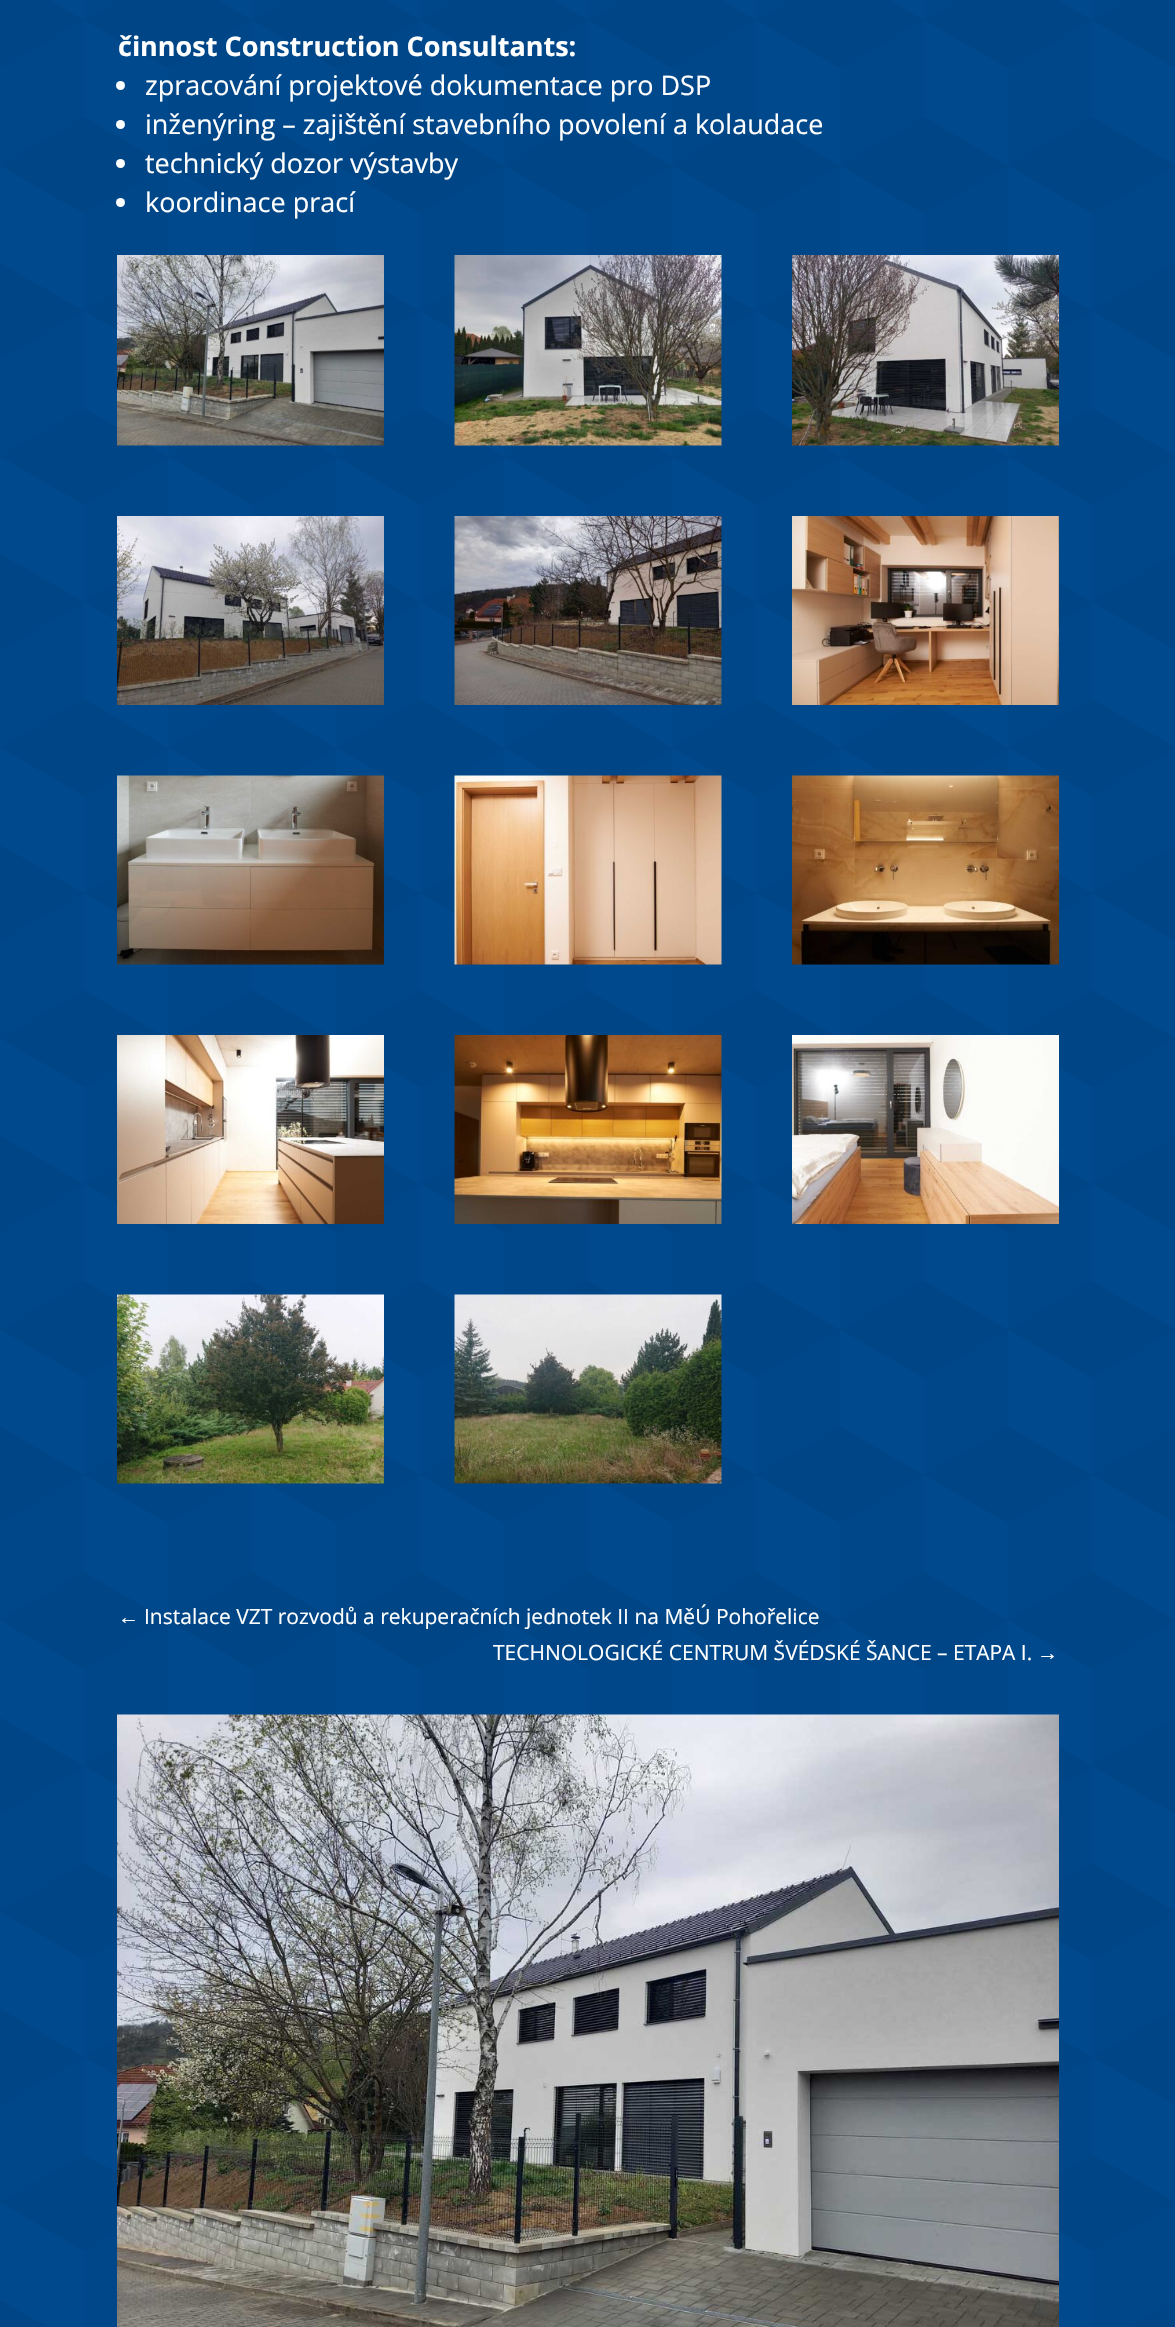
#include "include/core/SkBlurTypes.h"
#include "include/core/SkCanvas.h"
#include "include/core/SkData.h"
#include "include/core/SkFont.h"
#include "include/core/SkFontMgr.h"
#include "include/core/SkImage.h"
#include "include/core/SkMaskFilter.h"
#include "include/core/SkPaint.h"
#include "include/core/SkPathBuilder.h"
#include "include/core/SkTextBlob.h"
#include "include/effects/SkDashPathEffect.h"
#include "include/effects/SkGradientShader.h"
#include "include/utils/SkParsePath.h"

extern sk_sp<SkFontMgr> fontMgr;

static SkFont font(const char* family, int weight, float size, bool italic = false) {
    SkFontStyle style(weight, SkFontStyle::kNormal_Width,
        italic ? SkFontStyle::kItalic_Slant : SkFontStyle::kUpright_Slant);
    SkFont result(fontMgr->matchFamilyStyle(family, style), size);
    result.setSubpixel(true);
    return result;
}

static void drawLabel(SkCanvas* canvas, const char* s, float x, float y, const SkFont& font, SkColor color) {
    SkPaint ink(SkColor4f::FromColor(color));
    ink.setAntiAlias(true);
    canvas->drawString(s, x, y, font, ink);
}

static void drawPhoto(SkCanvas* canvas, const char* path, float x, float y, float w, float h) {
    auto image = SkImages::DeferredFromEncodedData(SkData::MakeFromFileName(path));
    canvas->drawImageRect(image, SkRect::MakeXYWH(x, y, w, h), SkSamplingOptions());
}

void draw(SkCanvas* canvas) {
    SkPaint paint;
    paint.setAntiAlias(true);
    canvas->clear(0xFF00498D);
    drawPhoto(canvas, "assets/img1.png", 0, 0, 1175, 2327);
    SkFont font1 = font("Open Sans", 700, 27);
    drawLabel(canvas, "činnost Construction Consultants:", 118, 56, font1, 0xFFFFFFFF);
    paint.setColor(0xFFFFFFFF);
    canvas->drawCircle(120.5f, 85.5f, 4.5f, paint);
    SkFont font2 = font("Open Sans", 400, 27);
    drawLabel(canvas, "zpracování projektové dokumentace pro DSP", 145, 95, font2, 0xFFFFFFFF);
    canvas->drawCircle(120.5f, 124.5f, 4.5f, paint);
    drawLabel(canvas, "inženýring – zajištění stavebního povolení a kolaudace", 145, 134, font2, 0xFFFFFFFF);
    canvas->drawCircle(120.5f, 163.5f, 4.5f, paint);
    drawLabel(canvas, "technický dozor výstavby", 145, 173, font2, 0xFFFFFFFF);
    canvas->drawCircle(120.5f, 202.5f, 4.5f, paint);
    drawLabel(canvas, "koordinace prací", 145, 212, font2, 0xFFFFFFFF);
    drawPhoto(canvas, "assets/img2.png", 117, 255, 267, 191);
    drawPhoto(canvas, "assets/img3.png", 454, 255, 268, 191);
    drawPhoto(canvas, "assets/img4.png", 792, 255, 267, 191);
    drawPhoto(canvas, "assets/img5.png", 117, 516, 267, 189);
    drawPhoto(canvas, "assets/img6.png", 454, 516, 268, 189);
    drawPhoto(canvas, "assets/img7.png", 792, 516, 267, 189);
    drawPhoto(canvas, "assets/img8.png", 117, 775, 267, 190);
    drawPhoto(canvas, "assets/img9.png", 454, 775, 268, 190);
    drawPhoto(canvas, "assets/img10.png", 792, 775, 267, 190);
    drawPhoto(canvas, "assets/img11.png", 117, 1035, 267, 189);
    drawPhoto(canvas, "assets/img12.png", 454, 1035, 268, 189);
    drawPhoto(canvas, "assets/img13.png", 792, 1035, 267, 189);
    drawPhoto(canvas, "assets/img14.png", 117, 1294, 267, 190);
    drawPhoto(canvas, "assets/img15.png", 454, 1294, 268, 190);
    SkFont font3 = font("Liberation Sans", 400, 21);
    drawLabel(canvas, "←", 118, 1624, font3, 0xFFFFFFFF);
    SkFont font4 = font("Open Sans", 400, 21);
    drawLabel(canvas, "Instalace VZT rozvodů a rekuperačních jednotek II na MěÚ Pohořelice", 144, 1624, font4, 0xFFFFFFFF);
    drawLabel(canvas, "TECHNOLOGICKÉ CENTRUM ŠVÉDSKÉ ŠANCE – ETAPA I.", 493, 1660, font4, 0xFFFFFFFF);
    drawLabel(canvas, "→", 1037, 1660, font3, 0xFFFFFFFF);
    drawPhoto(canvas, "assets/img16.png", 117, 1714, 942, 613);
}
